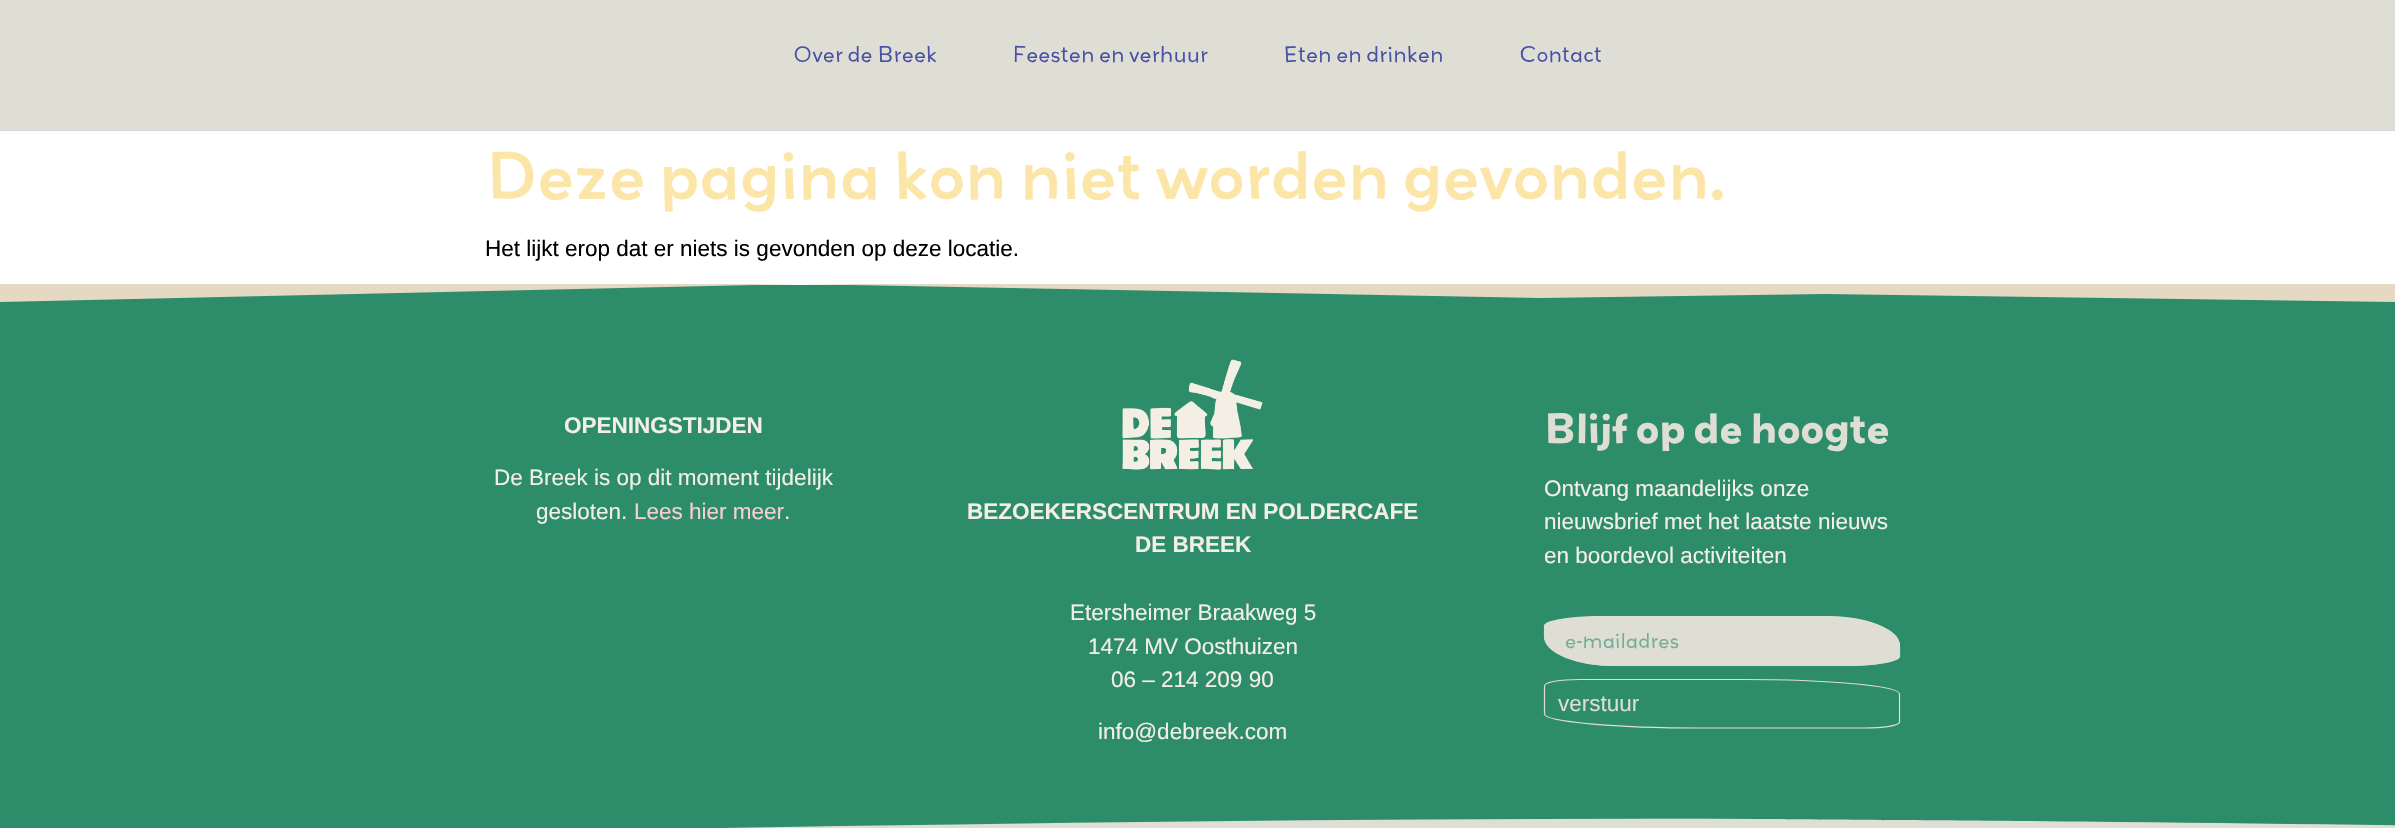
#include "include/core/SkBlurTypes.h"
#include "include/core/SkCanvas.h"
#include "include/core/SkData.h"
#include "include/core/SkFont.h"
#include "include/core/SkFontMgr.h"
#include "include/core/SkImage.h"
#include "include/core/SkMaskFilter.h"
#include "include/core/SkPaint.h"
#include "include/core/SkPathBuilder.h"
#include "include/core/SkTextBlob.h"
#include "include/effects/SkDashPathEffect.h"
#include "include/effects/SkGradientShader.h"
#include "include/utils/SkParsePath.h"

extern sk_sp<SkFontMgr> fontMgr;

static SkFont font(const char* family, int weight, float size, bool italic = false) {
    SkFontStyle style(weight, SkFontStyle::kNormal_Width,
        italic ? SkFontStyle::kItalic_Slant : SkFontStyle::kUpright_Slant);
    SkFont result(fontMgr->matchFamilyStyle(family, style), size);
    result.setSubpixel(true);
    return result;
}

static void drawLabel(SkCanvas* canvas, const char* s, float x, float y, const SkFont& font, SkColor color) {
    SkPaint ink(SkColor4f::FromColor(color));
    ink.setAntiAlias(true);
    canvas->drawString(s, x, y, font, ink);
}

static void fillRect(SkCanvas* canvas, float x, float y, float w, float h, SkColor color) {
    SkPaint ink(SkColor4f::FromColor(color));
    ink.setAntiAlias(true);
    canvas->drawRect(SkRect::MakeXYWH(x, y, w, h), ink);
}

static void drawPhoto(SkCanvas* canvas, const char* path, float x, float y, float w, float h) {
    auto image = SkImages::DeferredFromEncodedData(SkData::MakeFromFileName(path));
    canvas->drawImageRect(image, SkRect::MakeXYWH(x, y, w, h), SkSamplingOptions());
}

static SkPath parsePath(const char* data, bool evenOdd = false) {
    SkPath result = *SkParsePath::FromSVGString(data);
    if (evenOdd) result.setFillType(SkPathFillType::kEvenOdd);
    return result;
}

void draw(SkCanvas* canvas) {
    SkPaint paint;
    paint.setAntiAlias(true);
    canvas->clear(0xFFFFFFFF);
    fillRect(canvas, 0, 0, 2395, 130, 0xFFDEDED4);
    fillRect(canvas, 0, 130, 2395, 1, 0xFFD8D8D8);
    SkFont font1 = font("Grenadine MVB", 400, 20);
    drawLabel(canvas, "Over de Breek", 793, 62, font1, 0xFF4750A6);
    drawLabel(canvas, "Feesten en verhuur", 1012, 62, font1, 0xFF4750A6);
    drawLabel(canvas, "Eten en drinken", 1283, 62, font1, 0xFF4750A6);
    drawLabel(canvas, "Contact", 1519, 62, font1, 0xFF4750A6);
    SkFont font2 = font("Grenadine MVB", 500, 60);
    drawLabel(canvas, "Deze pagina kon niet worden gevonden.", 485, 199, font2, 0xFFFCE6A7);
    SkFont font3 = font("Liberation Sans", 400, 22.5f);
    drawLabel(canvas, "Het lijkt erop dat er niets is gevonden op deze locatie.", 485, 256, font3, 0xFF000000);
    fillRect(canvas, 0, 285, 2395, 533, 0xFF2D8C6A);
    canvas->save();
    canvas->clipRect(SkRect::MakeXYWH(0, 284, 2395, 20));
    paint.setColor(0xFFE5D9C4);
    canvas->drawPath(parsePath("M1825 294L1540 298L799 284L-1 302V283H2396V302"), paint);
    canvas->restore();
    SkFont font4 = font("Liberation Sans", 700, 22.5f);
    drawLabel(canvas, "OPENINGSTIJDEN", 564, 433, font4, 0xFFF4EFE5);
    drawLabel(canvas, "De Breek is op dit moment tijdelijk", 494, 485, font3, 0xFFF4EFE5);
    drawLabel(canvas, "gesloten.", 536, 519, font3, 0xFFF4EFE5);
    drawLabel(canvas, "Lees hier meer", 634, 519, font3, 0xFFF5CFD0);
    drawLabel(canvas, ".", 784, 519, font3, 0xFFF4EFE5);
    SkFont font5 = font("Grenadine MVB", 700, 37.5f);
    drawLabel(canvas, "Blijf op de hoogte", 1544, 443, font5, 0xFFDEDED5);
    drawLabel(canvas, "Ontvang maandelijks onze", 1544, 496, font3, 0xFFF4EFE5);
    drawLabel(canvas, "nieuwsbrief met het laatste nieuws", 1544, 529, font3, 0xFFF4EFE5);
    drawLabel(canvas, "en boordevol activiteiten", 1544, 563, font3, 0xFFF4EFE5);
    paint.setColor(0xFFDEDED5);
    canvas->drawPath(parsePath("M1601 616H1829C1868 616 1900 630 1900 646V656C1900 662 1874 666 1843 666H1615C1576 666 1544 653 1544 636V626C1544 621 1569 616 1601 616Z"), paint);
    paint.setStroke(true);
    paint.setStrokeWidth(1.2f);
    canvas->drawPath(parsePath("M1601 617H1829C1868 617 1899.5 630 1899.5 646V656C1899.5 661.5 1874 665.5 1843 665.5H1615C1576 665.5 1544.5 652.5 1544.5 636V626C1544.5 621 1569.5 617 1601 617Z"), paint);
    SkFont font6 = font("Grenadine MVB", 400, 18.75f);
    drawLabel(canvas, "e-mailadres", 1565, 648, font6, 0xFF74AD95);
    canvas->drawPath(parsePath("M1579.5 679.5H1743C1829.5 679.5 1899.5 686 1899.5 694V722C1899.5 725.5 1883.5 728 1864.5 728H1700.5C1614.5 728 1544.5 721.5 1544.5 714V686C1544.5 682 1560 679.5 1579.5 679.5Z"), paint);
    drawLabel(canvas, "verstuur", 1558, 711, font3, 0xFFDEDED5);
    drawPhoto(canvas, "assets/img1.png", 1122, 359, 141, 111);
    drawLabel(canvas, "BEZOEKERSCENTRUM EN POLDERCAFE", 967, 519, font4, 0xFFF4EFE5);
    drawLabel(canvas, "DE BREEK", 1135, 552, font4, 0xFFF4EFE5);
    drawLabel(canvas, "Etersheimer Braakweg 5", 1070, 620, font3, 0xFFF4EFE5);
    drawLabel(canvas, "1474 MV Oosthuizen", 1088, 654, font3, 0xFFF4EFE5);
    drawLabel(canvas, "06 – 214 209 90", 1111, 687, font3, 0xFFF4EFE5);
    drawLabel(canvas, "info@debreek.com", 1098, 739, font3, 0xFFF4EFE5);
    fillRect(canvas, 729, 819, 1666, 9, 0xFFDEDED5);
    paint.setStroke(false);
    paint.setColor(0xFF2D8C6A);
    canvas->drawPath(parsePath("M1759 819C1149 817 538 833-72 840C-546 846-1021 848-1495 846C-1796 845-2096 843-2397 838V818H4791V827C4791 827 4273 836 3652 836C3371 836 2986 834 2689 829C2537 827 2314 824 2117 822C1921 820 1833 820 1759 819Z"), paint);
}
